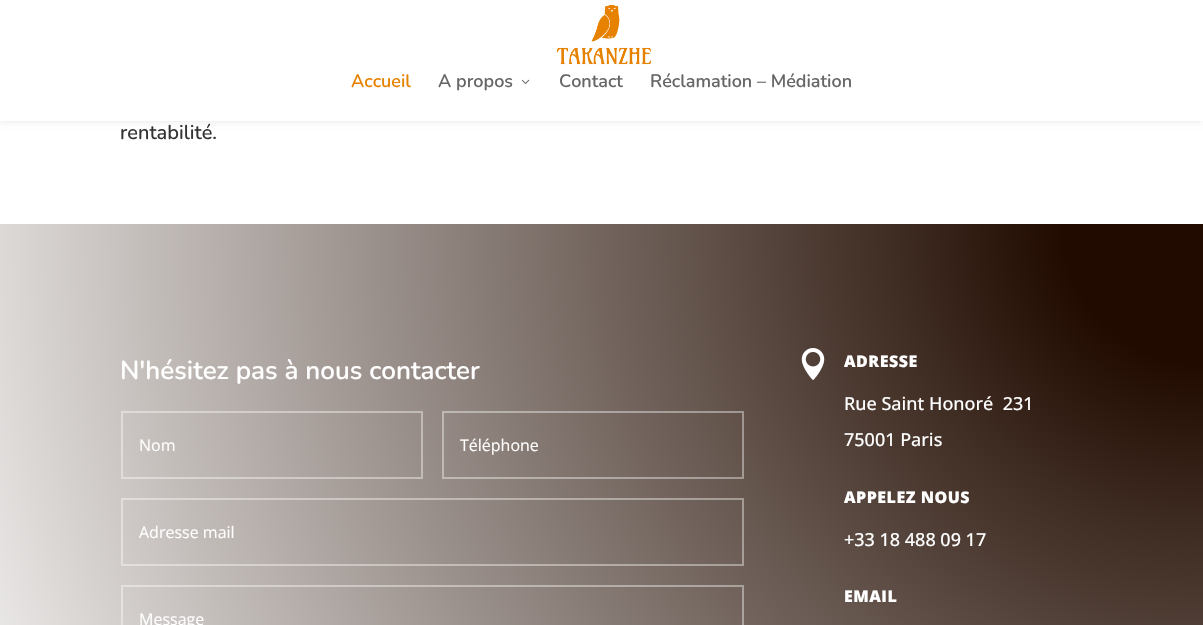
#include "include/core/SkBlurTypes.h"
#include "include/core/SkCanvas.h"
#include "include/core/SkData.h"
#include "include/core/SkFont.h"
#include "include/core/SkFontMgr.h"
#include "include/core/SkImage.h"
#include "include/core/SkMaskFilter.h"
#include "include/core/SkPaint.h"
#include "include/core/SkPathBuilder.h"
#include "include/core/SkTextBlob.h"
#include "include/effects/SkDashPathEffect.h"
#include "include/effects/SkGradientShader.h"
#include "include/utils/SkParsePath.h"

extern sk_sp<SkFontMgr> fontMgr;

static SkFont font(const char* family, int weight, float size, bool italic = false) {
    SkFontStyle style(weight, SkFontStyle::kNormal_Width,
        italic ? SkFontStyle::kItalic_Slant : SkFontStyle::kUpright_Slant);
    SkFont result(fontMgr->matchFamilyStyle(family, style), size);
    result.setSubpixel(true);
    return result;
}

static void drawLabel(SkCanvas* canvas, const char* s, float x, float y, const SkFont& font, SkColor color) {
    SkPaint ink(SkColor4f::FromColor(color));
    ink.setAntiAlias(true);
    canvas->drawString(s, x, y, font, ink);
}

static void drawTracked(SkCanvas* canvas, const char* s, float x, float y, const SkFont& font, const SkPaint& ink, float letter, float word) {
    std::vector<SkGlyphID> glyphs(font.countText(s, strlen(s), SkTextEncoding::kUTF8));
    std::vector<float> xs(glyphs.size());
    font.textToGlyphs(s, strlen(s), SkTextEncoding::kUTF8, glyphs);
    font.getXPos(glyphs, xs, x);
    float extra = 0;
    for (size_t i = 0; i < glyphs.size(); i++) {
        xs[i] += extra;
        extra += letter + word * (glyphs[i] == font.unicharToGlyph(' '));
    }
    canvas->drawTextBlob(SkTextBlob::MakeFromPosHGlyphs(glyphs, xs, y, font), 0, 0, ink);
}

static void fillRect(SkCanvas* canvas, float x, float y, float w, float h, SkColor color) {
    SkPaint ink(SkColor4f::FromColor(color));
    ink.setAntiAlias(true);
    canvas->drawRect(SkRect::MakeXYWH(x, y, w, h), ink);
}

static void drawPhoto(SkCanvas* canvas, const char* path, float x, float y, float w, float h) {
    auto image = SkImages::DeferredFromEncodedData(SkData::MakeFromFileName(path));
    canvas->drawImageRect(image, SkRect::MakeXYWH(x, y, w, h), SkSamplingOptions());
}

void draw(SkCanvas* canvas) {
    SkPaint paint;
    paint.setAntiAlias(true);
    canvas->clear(0xFFFFFFFF);
    paint.setColor(0x1A000000);
    paint.setMaskFilter(SkMaskFilter::MakeBlur(kNormal_SkBlurStyle, 3.5f));
    canvas->drawRect(SkRect::MakeXYWH(0, 0, 1203, 121), paint);
    paint.setMaskFilter(nullptr);
    fillRect(canvas, 0, 0, 1203, 121, 0xFFFFFFFF);
    drawPhoto(canvas, "assets/img1.png", 557, 4, 94, 61);
    SkFont font1 = font("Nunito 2", 200, 18);
    drawLabel(canvas, "Accueil", 351, 87, font1, 0xFFE78200);
    drawLabel(canvas, "A propos", 438, 87, font1, 0xFF666666);
    drawPhoto(canvas, "assets/img2.png", 521, 79, 9, 5);
    drawLabel(canvas, "Contact", 559, 87, font1, 0xFF666666);
    drawLabel(canvas, "Réclamation – Médiation", 650, 87, font1, 0xFF666666);
    SkFont font2 = font("Nunito", 200, 20);
    drawLabel(canvas, "rentabilité.", 120, 139, font2, 0xFF333333);
    {
        const SkColor colors[] = {0xFF210B00, 0xFFFFFFFF};
        const float stops[] = {0.1f, 1};
        paint.setShader(SkGradientShader::MakeRadial({1203, 224}, 1398, colors, stops, 2, SkTileMode::kClamp));
        paint.setAlpha(255);
    }
    canvas->drawRect(SkRect::MakeXYWH(0, 224, 1203, 401), paint);
    SkFont font3 = font("Nunito 2", 200, 26);
    drawLabel(canvas, "N'hésitez pas à nous contacter", 120, 379, font3, 0xFFFFFFFF);
    paint.setStroke(true);
    paint.setStrokeWidth(2);
    paint.setShader(nullptr);
    paint.setColor(0x66FFFFFF);
    canvas->drawRect(SkRect::MakeXYWH(122, 412, 300, 66), paint);
    SkFont font4 = font("Open Sans", 400, 16);
    drawLabel(canvas, "Nom", 139, 451, font4, 0xFFFFFFFF);
    canvas->drawRect(SkRect::MakeXYWH(443, 412, 300, 66), paint);
    drawLabel(canvas, "Téléphone", 460, 451, font4, 0xFFFFFFFF);
    canvas->drawRect(SkRect::MakeXYWH(122, 499, 621, 66), paint);
    drawLabel(canvas, "Adresse mail", 139, 538, font4, 0xFFFFFFFF);
    canvas->drawRect(SkRect::MakeXYWH(122, 586, 621, 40), paint);
    drawLabel(canvas, "Message", 139, 625, font4, 0xFFFFFFFF);
    drawPhoto(canvas, "assets/img3.png", 801, 348, 24, 32);
    SkFont font5 = font("Open Sans", 800, 16);
    paint.setStroke(false);
    paint.setColor(0xFFFFFFFF);
    drawTracked(canvas, "ADRESSE", 844, 367, font5, paint, 0.5f, 0);
    SkFont font6 = font("Open Sans", 500, 18);
    drawLabel(canvas, "Rue Saint Honoré  231", 844, 410, font6, 0xFFFFFFFF);
    drawLabel(canvas, "75001 Paris", 844, 446, font6, 0xFFFFFFFF);
    drawTracked(canvas, "APPELEZ NOUS", 844, 503, font5, paint, 0.5f, 0);
    drawLabel(canvas, "+33 18 488 09 17", 844, 546, font6, 0xFFFFFFFF);
    drawTracked(canvas, "EMAIL", 844, 602, font5, paint, 0.5f, 0);
}
